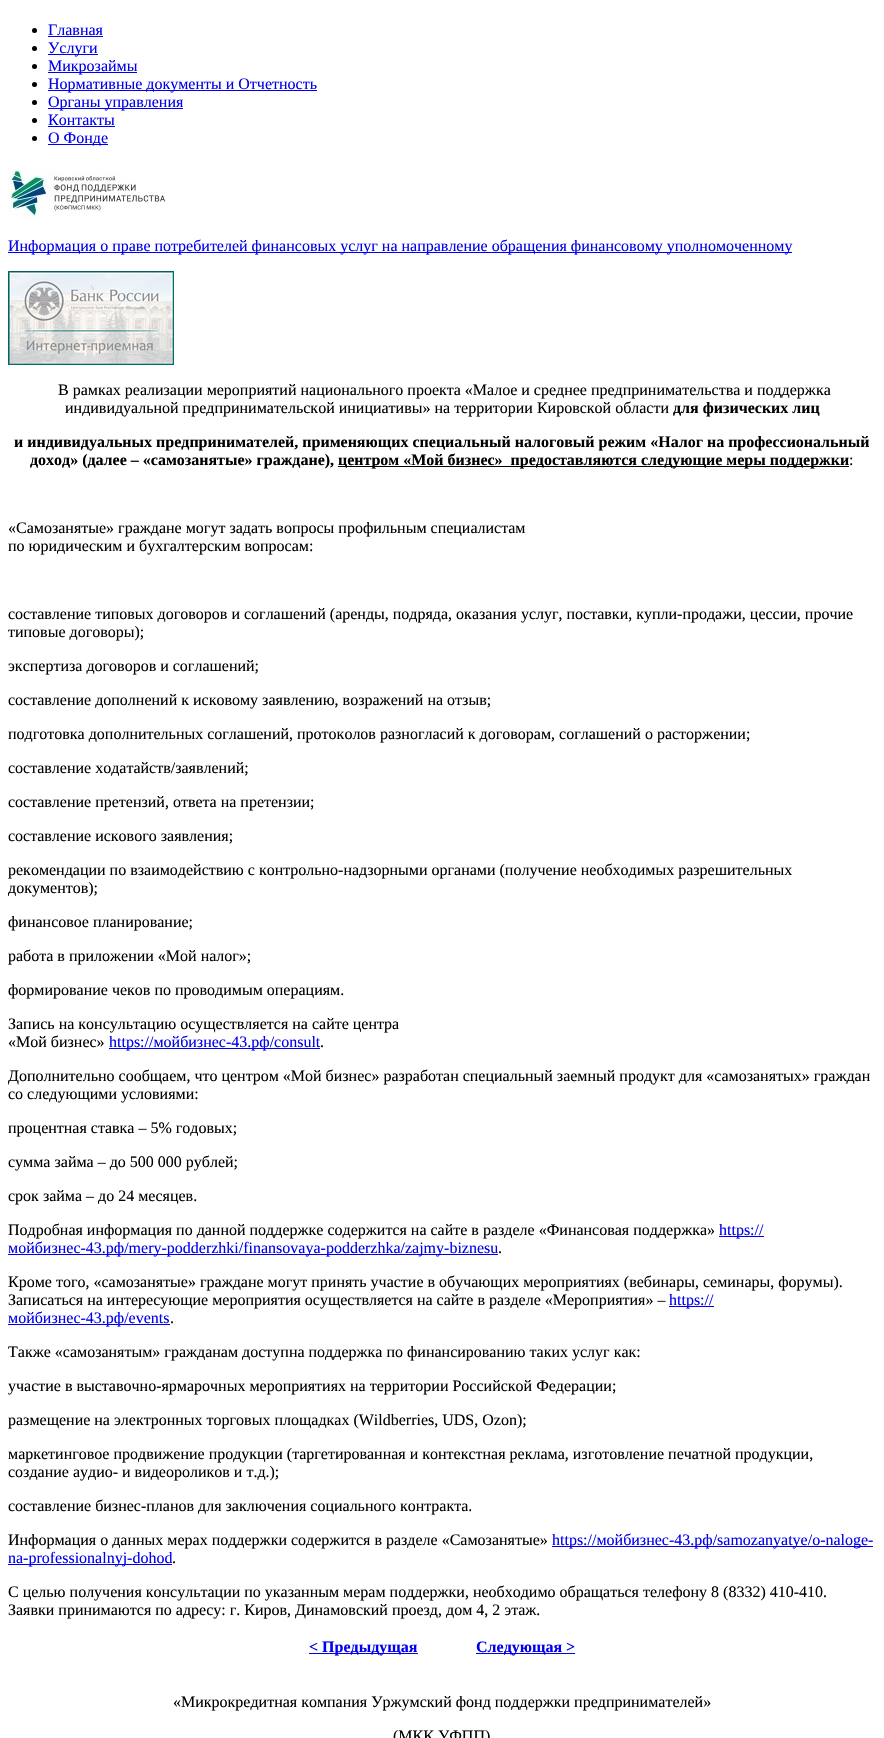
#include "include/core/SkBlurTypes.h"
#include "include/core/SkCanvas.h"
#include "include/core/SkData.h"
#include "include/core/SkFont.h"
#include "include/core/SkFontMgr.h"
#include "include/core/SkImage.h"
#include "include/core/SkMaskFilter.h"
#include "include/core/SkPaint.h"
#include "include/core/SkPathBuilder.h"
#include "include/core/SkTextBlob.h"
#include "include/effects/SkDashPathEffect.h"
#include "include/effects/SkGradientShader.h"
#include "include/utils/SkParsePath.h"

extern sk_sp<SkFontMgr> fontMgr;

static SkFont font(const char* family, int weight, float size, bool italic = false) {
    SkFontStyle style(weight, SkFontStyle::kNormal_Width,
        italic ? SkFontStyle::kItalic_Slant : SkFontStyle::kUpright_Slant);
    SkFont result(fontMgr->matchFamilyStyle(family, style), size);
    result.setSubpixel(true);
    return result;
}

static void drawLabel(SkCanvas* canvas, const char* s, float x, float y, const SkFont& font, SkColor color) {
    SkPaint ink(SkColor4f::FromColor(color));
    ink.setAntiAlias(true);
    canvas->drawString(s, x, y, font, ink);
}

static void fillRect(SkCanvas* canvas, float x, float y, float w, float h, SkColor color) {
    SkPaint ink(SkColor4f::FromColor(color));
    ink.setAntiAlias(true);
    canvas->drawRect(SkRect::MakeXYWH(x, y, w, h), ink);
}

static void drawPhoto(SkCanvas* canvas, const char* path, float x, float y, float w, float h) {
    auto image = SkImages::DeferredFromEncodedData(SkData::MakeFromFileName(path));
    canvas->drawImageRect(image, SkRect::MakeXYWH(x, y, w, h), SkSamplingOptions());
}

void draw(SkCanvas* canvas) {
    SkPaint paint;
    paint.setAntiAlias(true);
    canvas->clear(0xFFFFFFFF);
    paint.setColor(0xFF000000);
    canvas->drawCircle(34.5f, 30.5f, 2.5f, paint);
    SkFont font1 = font("Liberation Serif", 400, 16);
    drawLabel(canvas, "Главная", 48, 35, font1, 0xFF0000EE);
    fillRect(canvas, 48, 36, 55, 1, 0xFF0000EE);
    canvas->drawCircle(34.5f, 48.5f, 2.5f, paint);
    fillRect(canvas, 48, 54, 50, 1, 0xFF0000EE);
    drawLabel(canvas, "Услуги", 48, 53, font1, 0xFF0000EE);
    canvas->drawCircle(34.5f, 66.5f, 2.5f, paint);
    fillRect(canvas, 48, 72, 89, 1, 0xFF0000EE);
    drawLabel(canvas, "Микрозаймы", 48, 71, font1, 0xFF0000EE);
    canvas->drawCircle(34.5f, 84.5f, 2.5f, paint);
    fillRect(canvas, 48, 90, 269, 1, 0xFF0000EE);
    drawLabel(canvas, "Нормативные документы и Отчетность", 48, 89, font1, 0xFF0000EE);
    canvas->drawCircle(34.5f, 102.5f, 2.5f, paint);
    fillRect(canvas, 48, 108, 135, 1, 0xFF0000EE);
    drawLabel(canvas, "Органы управления", 48, 107, font1, 0xFF0000EE);
    canvas->drawCircle(34.5f, 120.5f, 2.5f, paint);
    drawLabel(canvas, "Контакты", 48, 125, font1, 0xFF0000EE);
    fillRect(canvas, 48, 126, 67, 1, 0xFF0000EE);
    canvas->drawCircle(34.5f, 138.5f, 2.5f, paint);
    fillRect(canvas, 48, 144, 60, 1, 0xFF0000EE);
    drawLabel(canvas, "О Фонде", 48, 143, font1, 0xFF0000EE);
    drawPhoto(canvas, "assets/img1.png", 8, 163, 159, 56);
    fillRect(canvas, 8, 252, 784, 1, 0xFF0000EE);
    drawLabel(canvas, "Информация о праве потребителей финансовых услуг на направление обращения финансовому уполномоченному", 8, 251, font1, 0xFF0000EE);
    drawPhoto(canvas, "assets/img2.png", 8, 271, 166, 94);
    drawLabel(canvas, "В рамках реализации мероприятий национального проекта «Малое и среднее предпринимательства и поддержка", 58, 395, font1, 0xFF000000);
    drawLabel(canvas, "индивидуальной предпринимательской инициативы» на территории Кировской области", 65, 413, font1, 0xFF000000);
    SkFont font2 = font("Liberation Serif", 700, 16);
    drawLabel(canvas, "для физических лиц", 673, 413, font2, 0xFF000000);
    drawLabel(canvas, "и индивидуальных предпринимателей, применяющих специальный налоговый режим «Налог на профессиональный", 14, 447, font2, 0xFF000000);
    drawLabel(canvas, "доход» (далее – «самозанятые» граждане),", 30, 465, font2, 0xFF000000);
    fillRect(canvas, 338, 466, 511, 1, 0xFF000000);
    drawLabel(canvas, "центром «Мой бизнес»  предоставляются следующие меры поддержки", 338, 465, font2, 0xFF000000);
    drawLabel(canvas, ":", 849, 465, font1, 0xFF000000);
    drawLabel(canvas, "«Самозанятые» граждане могут задать вопросы профильным специалистам", 8, 533, font1, 0xFF000000);
    drawLabel(canvas, "по юридическим и бухгалтерским вопросам:", 8, 551, font1, 0xFF000000);
    drawLabel(canvas, "составление типовых договоров и соглашений (аренды, подряда, оказания услуг, поставки, купли-продажи, цессии, прочие", 8, 619, font1, 0xFF000000);
    drawLabel(canvas, "типовые договоры);", 8, 637, font1, 0xFF000000);
    drawLabel(canvas, "экспертиза договоров и соглашений;", 8, 671, font1, 0xFF000000);
    drawLabel(canvas, "составление дополнений к исковому заявлению, возражений на отзыв;", 8, 705, font1, 0xFF000000);
    drawLabel(canvas, "подготовка дополнительных соглашений, протоколов разногласий к договорам, соглашений о расторжении;", 8, 739, font1, 0xFF000000);
    drawLabel(canvas, "составление ходатайств/заявлений;", 8, 773, font1, 0xFF000000);
    drawLabel(canvas, "составление претензий, ответа на претензии;", 8, 807, font1, 0xFF000000);
    drawLabel(canvas, "составление искового заявления;", 8, 841, font1, 0xFF000000);
    drawLabel(canvas, "рекомендации по взаимодействию с контрольно-надзорными органами (получение необходимых разрешительных", 8, 875, font1, 0xFF000000);
    drawLabel(canvas, "документов);", 8, 893, font1, 0xFF000000);
    drawLabel(canvas, "финансовое планирование;", 8, 927, font1, 0xFF000000);
    drawLabel(canvas, "работа в приложении «Мой налог»;", 8, 961, font1, 0xFF000000);
    drawLabel(canvas, "формирование чеков по проводимым операциям.", 8, 995, font1, 0xFF000000);
    drawLabel(canvas, "Запись на консультацию осуществляется на сайте центра", 8, 1029, font1, 0xFF000000);
    drawLabel(canvas, "«Мой бизнес»", 8, 1047, font1, 0xFF000000);
    fillRect(canvas, 109, 1048, 211, 1, 0xFF0000EE);
    drawLabel(canvas, "https://мойбизнес-43.рф/consult", 109, 1047, font1, 0xFF0000EE);
    drawLabel(canvas, ".", 320, 1047, font1, 0xFF000000);
    drawLabel(canvas, "Дополнительно сообщаем, что центром «Мой бизнес» разработан специальный заемный продукт для «самозанятых» граждан", 8, 1081, font1, 0xFF000000);
    drawLabel(canvas, "со следующими условиями:", 8, 1099, font1, 0xFF000000);
    drawLabel(canvas, "процентная ставка – 5% годовых;", 8, 1133, font1, 0xFF000000);
    drawLabel(canvas, "сумма займа – до 500 000 рублей;", 8, 1167, font1, 0xFF000000);
    drawLabel(canvas, "срок займа – до 24 месяцев.", 8, 1201, font1, 0xFF000000);
    drawLabel(canvas, "Подробная информация по данной поддержке содержится на сайте в разделе «Финансовая поддержка»", 8, 1235, font1, 0xFF000000);
    fillRect(canvas, 719, 1236, 45, 1, 0xFF0000EE);
    drawLabel(canvas, "https://", 719, 1235, font1, 0xFF0000EE);
    fillRect(canvas, 8, 1254, 490, 1, 0xFF0000EE);
    drawLabel(canvas, "мойбизнес-43.рф/mery-podderzhki/finansovaya-podderzhka/zajmy-biznesu", 8, 1253, font1, 0xFF0000EE);
    drawLabel(canvas, ".", 498, 1253, font1, 0xFF000000);
    drawLabel(canvas, "Кроме того, «самозанятые» граждане могут принять участие в обучающих мероприятиях (вебинары, семинары, форумы).", 8, 1287, font1, 0xFF000000);
    drawLabel(canvas, "Записаться на интересующие мероприятия осуществляется на сайте в разделе «Мероприятия» –", 8, 1305, font1, 0xFF000000);
    fillRect(canvas, 669, 1306, 45, 1, 0xFF0000EE);
    drawLabel(canvas, "https://", 669, 1305, font1, 0xFF0000EE);
    fillRect(canvas, 8, 1324, 162, 1, 0xFF0000EE);
    drawLabel(canvas, "мойбизнес-43.рф/events", 8, 1323, font1, 0xFF0000EE);
    drawLabel(canvas, ".", 170, 1323, font1, 0xFF000000);
    drawLabel(canvas, "Также «самозанятым» гражданам доступна поддержка по финансированию таких услуг как:", 8, 1357, font1, 0xFF000000);
    drawLabel(canvas, "участие в выставочно-ярмарочных мероприятиях на территории Российской Федерации;", 8, 1391, font1, 0xFF000000);
    drawLabel(canvas, "размещение на электронных торговых площадках (Wildberries, UDS, Ozon);", 8, 1425, font1, 0xFF000000);
    drawLabel(canvas, "маркетинговое продвижение продукции (таргетированная и контекстная реклама, изготовление печатной продукции,", 8, 1459, font1, 0xFF000000);
    drawLabel(canvas, "создание аудио- и видеороликов и т.д.);", 8, 1477, font1, 0xFF000000);
    drawLabel(canvas, "составление бизнес-планов для заключения социального контракта.", 8, 1511, font1, 0xFF000000);
    drawLabel(canvas, "Информация о данных мерах поддержки содержится в разделе «Самозанятые»", 8, 1545, font1, 0xFF000000);
    fillRect(canvas, 552, 1546, 321, 1, 0xFF0000EE);
    drawLabel(canvas, "https://мойбизнес-43.рф/samozanyatye/o-naloge-", 552, 1545, font1, 0xFF0000EE);
    fillRect(canvas, 8, 1564, 164, 1, 0xFF0000EE);
    drawLabel(canvas, "na-professionalnyj-dohod", 8, 1563, font1, 0xFF0000EE);
    drawLabel(canvas, ".", 172, 1563, font1, 0xFF000000);
    drawLabel(canvas, "С целью получения консультации по указанным мерам поддержки, необходимо обращаться телефону 8 (8332) 410-410.", 8, 1597, font1, 0xFF000000);
    drawLabel(canvas, "Заявки принимаются по адресу: г. Киров, Динамовский проезд, дом 4, 2 этаж.", 8, 1615, font1, 0xFF000000);
    fillRect(canvas, 309, 1653, 109, 1, 0xFF0000EE);
    drawLabel(canvas, "< Предыдущая", 309, 1652, font2, 0xFF0000EE);
    fillRect(canvas, 476, 1653, 99, 1, 0xFF0000EE);
    drawLabel(canvas, "Следующая >", 476, 1652, font2, 0xFF0000EE);
    drawLabel(canvas, "«Микрокредитная компания Уржумский фонд поддержки предпринимателей»", 173, 1707, font1, 0xFF000000);
    drawLabel(canvas, "(МКК УФПП)", 393, 1741, font1, 0xFF000000);
}
